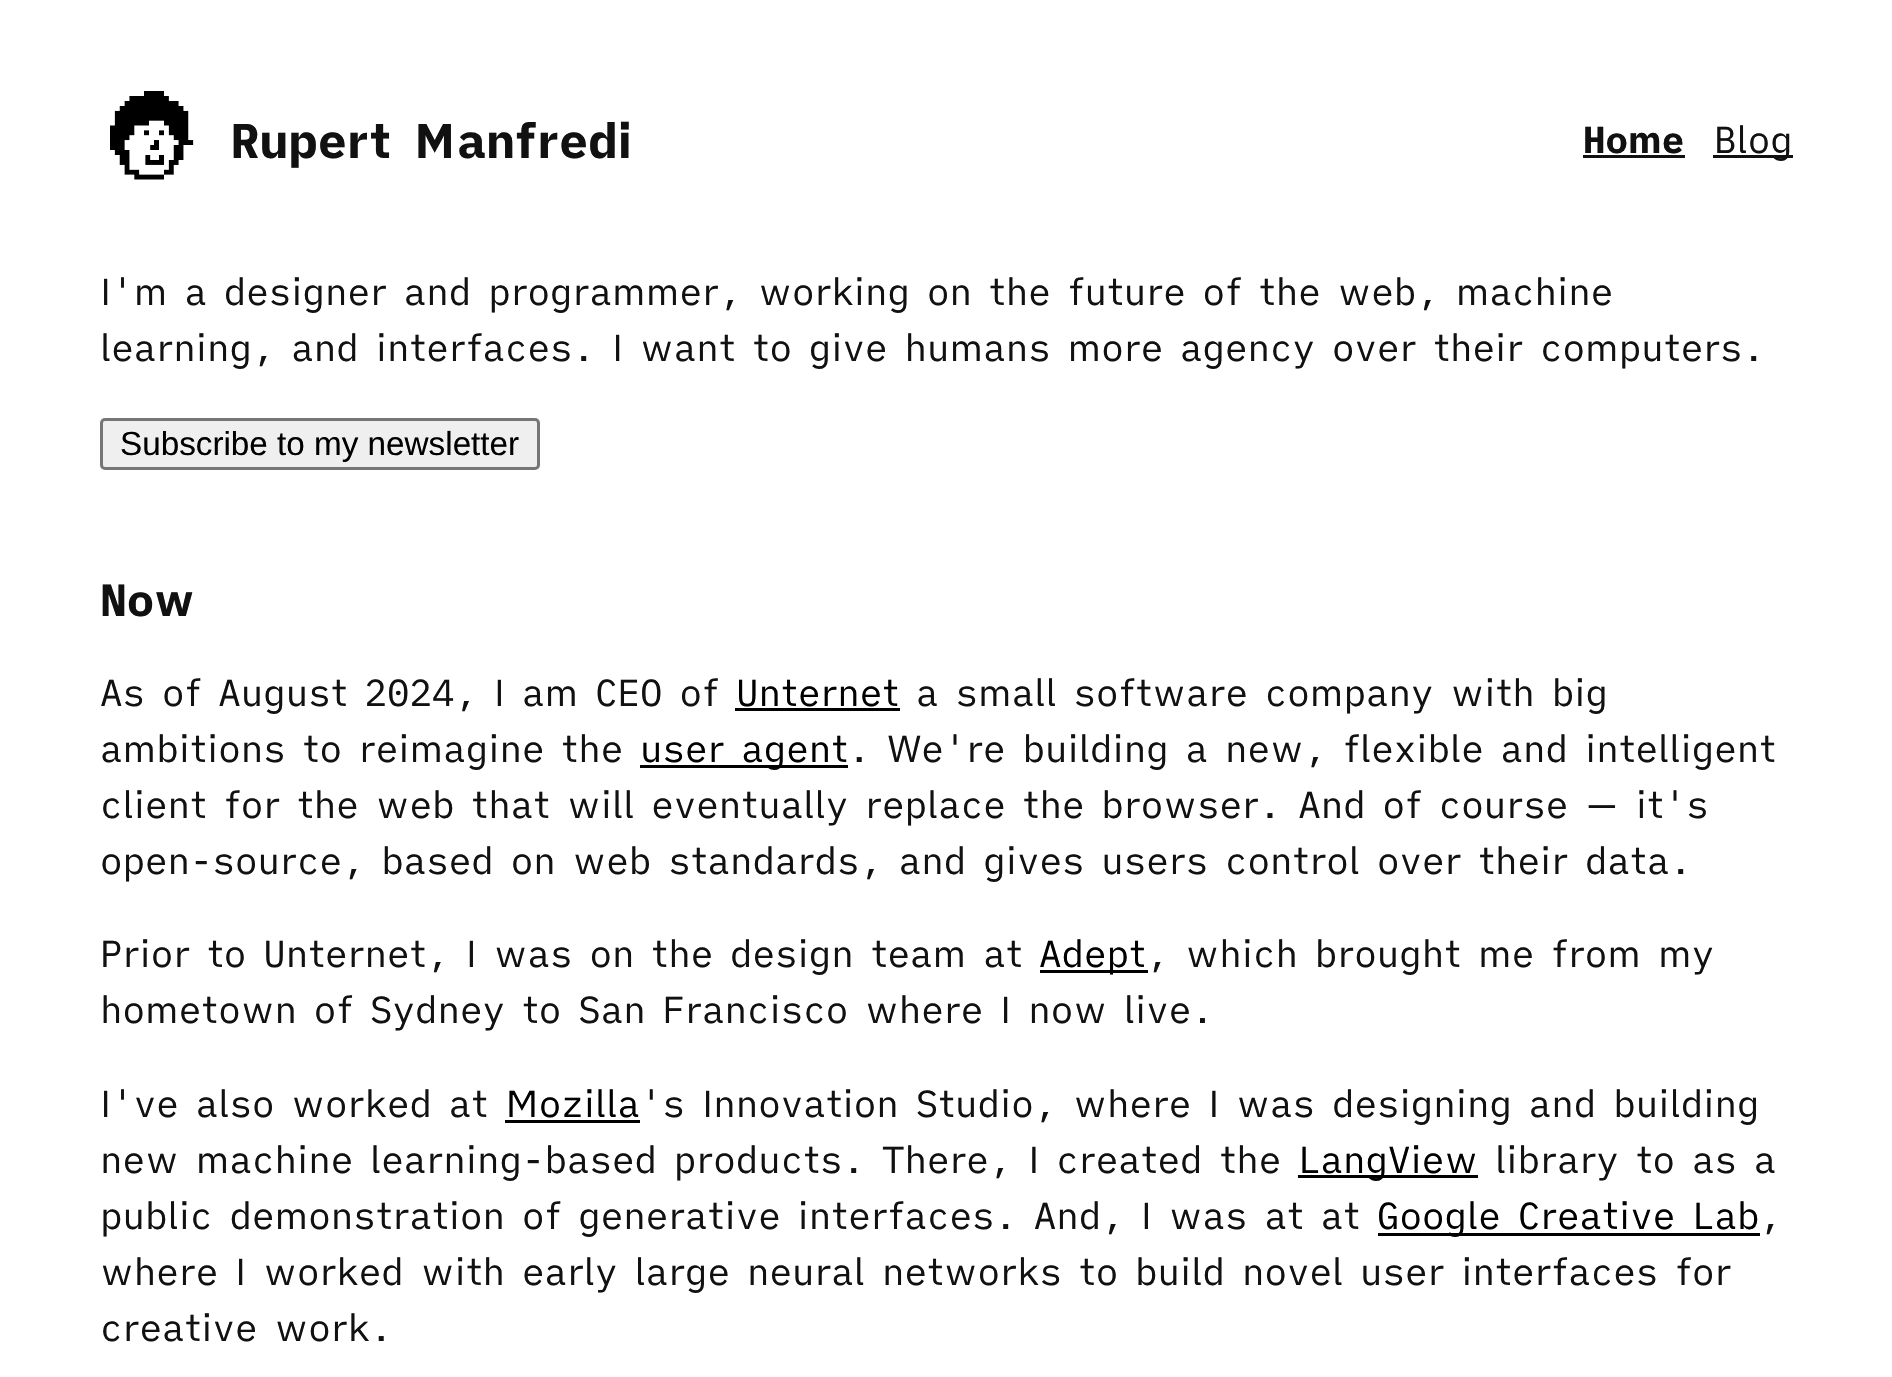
#include "include/core/SkBlurTypes.h"
#include "include/core/SkCanvas.h"
#include "include/core/SkData.h"
#include "include/core/SkFont.h"
#include "include/core/SkFontMgr.h"
#include "include/core/SkImage.h"
#include "include/core/SkMaskFilter.h"
#include "include/core/SkPaint.h"
#include "include/core/SkPathBuilder.h"
#include "include/core/SkTextBlob.h"
#include "include/effects/SkDashPathEffect.h"
#include "include/effects/SkGradientShader.h"
#include "include/utils/SkParsePath.h"

extern sk_sp<SkFontMgr> fontMgr;

static SkFont font(const char* family, int weight, float size, bool italic = false) {
    SkFontStyle style(weight, SkFontStyle::kNormal_Width,
        italic ? SkFontStyle::kItalic_Slant : SkFontStyle::kUpright_Slant);
    SkFont result(fontMgr->matchFamilyStyle(family, style), size);
    result.setSubpixel(true);
    return result;
}

static void drawLabel(SkCanvas* canvas, const char* s, float x, float y, const SkFont& font, SkColor color) {
    SkPaint ink(SkColor4f::FromColor(color));
    ink.setAntiAlias(true);
    canvas->drawString(s, x, y, font, ink);
}

static void fillRect(SkCanvas* canvas, float x, float y, float w, float h, SkColor color) {
    SkPaint ink(SkColor4f::FromColor(color));
    ink.setAntiAlias(true);
    canvas->drawRect(SkRect::MakeXYWH(x, y, w, h), ink);
}

static void drawPhoto(SkCanvas* canvas, const char* path, float x, float y, float w, float h) {
    auto image = SkImages::DeferredFromEncodedData(SkData::MakeFromFileName(path));
    canvas->drawImageRect(image, SkRect::MakeXYWH(x, y, w, h), SkSamplingOptions());
}

void draw(SkCanvas* canvas) {
    SkPaint paint;
    paint.setAntiAlias(true);
    canvas->clear(0xFFFFFFFF);
    drawPhoto(canvas, "assets/img1.png", 110, 91, 84, 89);
    SkFont font1 = font("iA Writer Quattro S", 700, 48.75f);
    drawLabel(canvas, "Rupert Manfredi", 230, 158, font1, 0xFF111111);
    SkFont font2 = font("iA Writer Quattro S", 700, 37.5f);
    drawLabel(canvas, "Home", 1583, 153, font2, 0xFF111111);
    fillRect(canvas, 1583, 155, 102, 3, 0xFF111111);
    fillRect(canvas, 1713, 155, 80, 3, 0xFF111111);
    SkFont font3 = font("iA Writer Quattro S", 400, 37.5f);
    drawLabel(canvas, "Blog", 1714, 153, font3, 0xFF111111);
    drawLabel(canvas, "I'm a designer and programmer, working on the future of the web, machine", 100, 305, font3, 0xFF111111);
    drawLabel(canvas, "learning, and interfaces. I want to give humans more agency over their computers.", 100, 361, font3, 0xFF111111);
    paint.setColor(0xFFEFEFEF);
    canvas->drawRoundRect(SkRect::MakeXYWH(101.5f, 419.5f, 437, 49), 3.5f, 3.5f, paint);
    paint.setStroke(true);
    paint.setStrokeWidth(3);
    paint.setColor(0xFF767676);
    canvas->drawRoundRect(SkRect::MakeXYWH(101.5f, 419.5f, 437, 49), 3.5f, 3.5f, paint);
    SkFont font4 = font("Liberation Sans", 400, 33.25f);
    drawLabel(canvas, "Subscribe to my newsletter", 120, 455, font4, 0xFF000000);
    SkFont font5 = font("iA Writer Quattro S", 700, 45);
    drawLabel(canvas, "Now", 100, 616, font5, 0xFF111111);
    drawLabel(canvas, "As of August 2024, I am CEO of", 100, 706, font3, 0xFF111111);
    drawLabel(canvas, "Unternet", 736, 706, font3, 0xFF000000);
    fillRect(canvas, 735, 708, 165, 3, 0xFF000000);
    drawLabel(canvas, "a small software company with big", 916, 706, font3, 0xFF111111);
    drawLabel(canvas, "ambitions to reimagine the", 100, 762, font3, 0xFF111111);
    fillRect(canvas, 640, 765, 208, 3, 0xFF000000);
    drawLabel(canvas, "user agent", 640, 762, font3, 0xFF000000);
    drawLabel(canvas, ". We're building a new, flexible and intelligent", 848, 762, font3, 0xFF111111);
    drawLabel(canvas, "client for the web that will eventually replace the browser. And of course — it's", 100, 818, font3, 0xFF111111);
    drawLabel(canvas, "open-source, based on web standards, and gives users control over their data.", 100, 874, font3, 0xFF111111);
    drawLabel(canvas, "Prior to Unternet, I was on the design team at", 100, 967, font3, 0xFF111111);
    fillRect(canvas, 1040, 970, 108, 3, 0xFF000000);
    drawLabel(canvas, "Adept", 1039, 967, font3, 0xFF000000);
    drawLabel(canvas, ", which brought me from my", 1146, 967, font3, 0xFF111111);
    drawLabel(canvas, "hometown of Sydney to San Francisco where I now live.", 100, 1023, font3, 0xFF111111);
    drawLabel(canvas, "I've also worked at", 100, 1117, font3, 0xFF111111);
    drawLabel(canvas, "Mozilla", 505, 1117, font3, 0xFF000000);
    fillRect(canvas, 505, 1120, 135, 3, 0xFF000000);
    drawLabel(canvas, "'s Innovation Studio, where I was designing and building", 640, 1117, font3, 0xFF111111);
    drawLabel(canvas, "new machine learning-based products. There, I created the", 100, 1173, font3, 0xFF111111);
    fillRect(canvas, 1298, 1175, 180, 3, 0xFF000000);
    drawLabel(canvas, "LangView", 1298, 1173, font3, 0xFF000000);
    drawLabel(canvas, "library to as a", 1495, 1173, font3, 0xFF111111);
    drawLabel(canvas, "public demonstration of generative interfaces. And, I was at at", 100, 1229, font3, 0xFF111111);
    fillRect(canvas, 1378, 1233, 382, 3, 0xFF000000);
    drawLabel(canvas, "Google Creative Lab", 1377, 1229, font3, 0xFF000000);
    drawLabel(canvas, ",", 1759, 1229, font3, 0xFF111111);
    drawLabel(canvas, "where I worked with early large neural networks to build novel user interfaces for", 100, 1285, font3, 0xFF111111);
    drawLabel(canvas, "creative work.", 100, 1341, font3, 0xFF111111);
}
